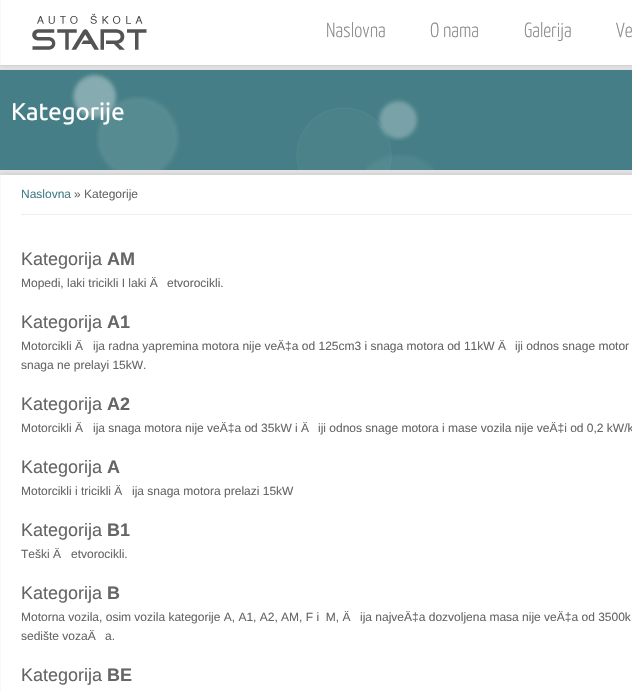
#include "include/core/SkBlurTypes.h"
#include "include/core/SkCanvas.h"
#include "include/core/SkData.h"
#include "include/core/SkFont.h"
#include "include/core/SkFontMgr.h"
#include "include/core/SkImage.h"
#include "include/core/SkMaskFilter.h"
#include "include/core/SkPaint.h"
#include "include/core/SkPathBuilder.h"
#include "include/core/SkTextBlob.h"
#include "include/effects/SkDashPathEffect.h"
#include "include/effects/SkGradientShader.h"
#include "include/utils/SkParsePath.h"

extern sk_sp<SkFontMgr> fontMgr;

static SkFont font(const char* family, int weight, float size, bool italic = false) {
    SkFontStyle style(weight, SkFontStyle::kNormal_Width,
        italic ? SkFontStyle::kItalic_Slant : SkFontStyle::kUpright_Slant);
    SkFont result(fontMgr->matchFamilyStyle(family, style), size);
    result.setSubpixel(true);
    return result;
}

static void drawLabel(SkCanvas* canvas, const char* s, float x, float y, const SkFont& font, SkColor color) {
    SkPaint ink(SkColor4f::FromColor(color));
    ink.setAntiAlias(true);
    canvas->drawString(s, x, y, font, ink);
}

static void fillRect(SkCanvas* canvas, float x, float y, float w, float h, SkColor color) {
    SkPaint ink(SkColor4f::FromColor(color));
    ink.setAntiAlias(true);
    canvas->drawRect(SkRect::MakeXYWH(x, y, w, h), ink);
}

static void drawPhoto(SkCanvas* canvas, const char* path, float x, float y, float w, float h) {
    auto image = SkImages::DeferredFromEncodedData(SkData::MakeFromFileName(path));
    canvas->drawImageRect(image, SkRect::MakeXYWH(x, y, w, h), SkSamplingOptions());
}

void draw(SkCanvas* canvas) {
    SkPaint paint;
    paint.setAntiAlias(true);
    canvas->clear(0xFFFFFFFF);
    drawPhoto(canvas, "assets/img1.png", 0, 65, 632, 110);
    paint.setColor(0xFFDEDEDE);
    paint.setMaskFilter(SkMaskFilter::MakeBlur(kNormal_SkBlurStyle, 3));
    canvas->drawRect(SkRect::MakeXYWH(0, 0, 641, 65), paint);
    paint.setMaskFilter(nullptr);
    fillRect(canvas, 1, 0, 631, 65, 0xFFFFFFFF);
    fillRect(canvas, 0, 0, 1, 65, 0xFFF8F8F8);
    drawPhoto(canvas, "assets/img2.png", 32, 13, 115, 37);
    SkFont font1 = font("Yanone Kaffeesatz", 300, 20.5f);
    drawLabel(canvas, "Naslovna", 326, 37, font1, 0xFF888888);
    drawLabel(canvas, "O nama", 430, 37, font1, 0xFF888888);
    drawLabel(canvas, "Galerija", 524, 37, font1, 0xFF888888);
    drawLabel(canvas, "Ve", 616, 37, font1, 0xFF888888);
    fillRect(canvas, 0, 65, 632, 5, 0x1A000000);
    paint.setMaskFilter(SkMaskFilter::MakeBlur(kNormal_SkBlurStyle, 3));
    canvas->drawRect(SkRect::MakeXYWH(0, 175, 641, 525), paint);
    paint.setMaskFilter(nullptr);
    fillRect(canvas, 0, 170, 632, 5, 0x1A000000);
    fillRect(canvas, 0, 70, 632, 100, 0xFF457E86);
    SkFont font2 = font("Ubuntu", 400, 24);
    drawLabel(canvas, "Kategorije", 11, 120, font2, 0xFFFFFFFF);
    drawPhoto(canvas, "assets/img3.png", 70, 72, 350, 69);
    drawPhoto(canvas, "assets/img4.png", 96, 96, 84, 74);
    drawPhoto(canvas, "assets/img6.png", 366, 154, 68, 16);
    drawPhoto(canvas, "assets/img5.png", 296, 107, 96, 63);
    fillRect(canvas, 1, 175, 631, 516, 0xFFFFFFFF);
    fillRect(canvas, 0, 175, 1, 516, 0xFFF8F8F8);
    fillRect(canvas, 21, 214, 611, 1, 0xFFEEEEEE);
    SkFont font3 = font("Liberation Sans", 400, 12);
    drawLabel(canvas, "Naslovna", 21, 198, font3, 0xFF457E86);
    drawLabel(canvas, "» Kategorije", 74, 198, font3, 0xFF666666);
    SkFont font4 = font("Liberation Sans", 400, 18);
    drawLabel(canvas, "Kategorija", 21, 265, font4, 0xFF666666);
    SkFont font5 = font("Liberation Sans", 700, 18);
    drawLabel(canvas, "AM", 107, 265, font5, 0xFF666666);
    drawLabel(canvas, "Mopedi, laki tricikli I laki Ä", 21, 287, font3, 0xFF666666);
    drawLabel(canvas, "etvorocikli.", 167, 287, font3, 0xFF666666);
    drawLabel(canvas, "Kategorija", 21, 328, font4, 0xFF666666);
    drawLabel(canvas, "A1", 107, 328, font5, 0xFF666666);
    drawLabel(canvas, "Motorcikli Ä", 21, 350, font3, 0xFF666666);
    drawLabel(canvas, "ija radna yapremina motora nije veÄ‡a od 125cm3 i snaga motora od 11kW Ä", 93, 350, font3, 0xFF666666);
    drawLabel(canvas, "iji odnos snage motor", 515, 350, font3, 0xFF666666);
    drawLabel(canvas, "snaga ne prelayi 15kW.", 21, 369, font3, 0xFF666666);
    drawLabel(canvas, "Kategorija", 21, 410, font4, 0xFF666666);
    drawLabel(canvas, "A2", 107, 410, font5, 0xFF666666);
    drawLabel(canvas, "Motorcikli Ä", 21, 432, font3, 0xFF666666);
    drawLabel(canvas, "ija snaga motora nije veÄ‡a od 35kW i Ä", 93, 432, font3, 0xFF666666);
    drawLabel(canvas, "iji odnos snage motora i mase vozila nije veÄ‡i od 0,2 kW/k", 318, 432, font3, 0xFF666666);
    drawLabel(canvas, "Kategorija", 21, 473, font4, 0xFF666666);
    drawLabel(canvas, "A", 107, 473, font5, 0xFF666666);
    drawLabel(canvas, "Motorcikli i tricikli Ä", 21, 495, font3, 0xFF666666);
    drawLabel(canvas, "ija snaga motora prelazi 15kW", 132, 495, font3, 0xFF666666);
    drawLabel(canvas, "Kategorija", 21, 536, font4, 0xFF666666);
    drawLabel(canvas, "B1", 107, 536, font5, 0xFF666666);
    drawLabel(canvas, "Teški Ä", 21, 558, font3, 0xFF666666);
    drawLabel(canvas, "etvorocikli.", 71, 558, font3, 0xFF666666);
    drawLabel(canvas, "Kategorija", 21, 599, font4, 0xFF666666);
    drawLabel(canvas, "B", 107, 599, font5, 0xFF666666);
    drawLabel(canvas, "Motorna vozila, osim vozila kategorije A, A1, A2, AM, F i  M, Ä", 21, 621, font3, 0xFF666666);
    drawLabel(canvas, "ija najveÄ‡a dozvoljena masa nije veÄ‡a od 3500k", 360, 621, font3, 0xFF666666);
    drawLabel(canvas, "sedište vozaÄ", 21, 640, font3, 0xFF666666);
    drawLabel(canvas, "a.", 105, 640, font3, 0xFF666666);
    drawLabel(canvas, "Kategorija", 21, 681, font4, 0xFF666666);
    drawLabel(canvas, "BE", 107, 681, font5, 0xFF666666);
}
